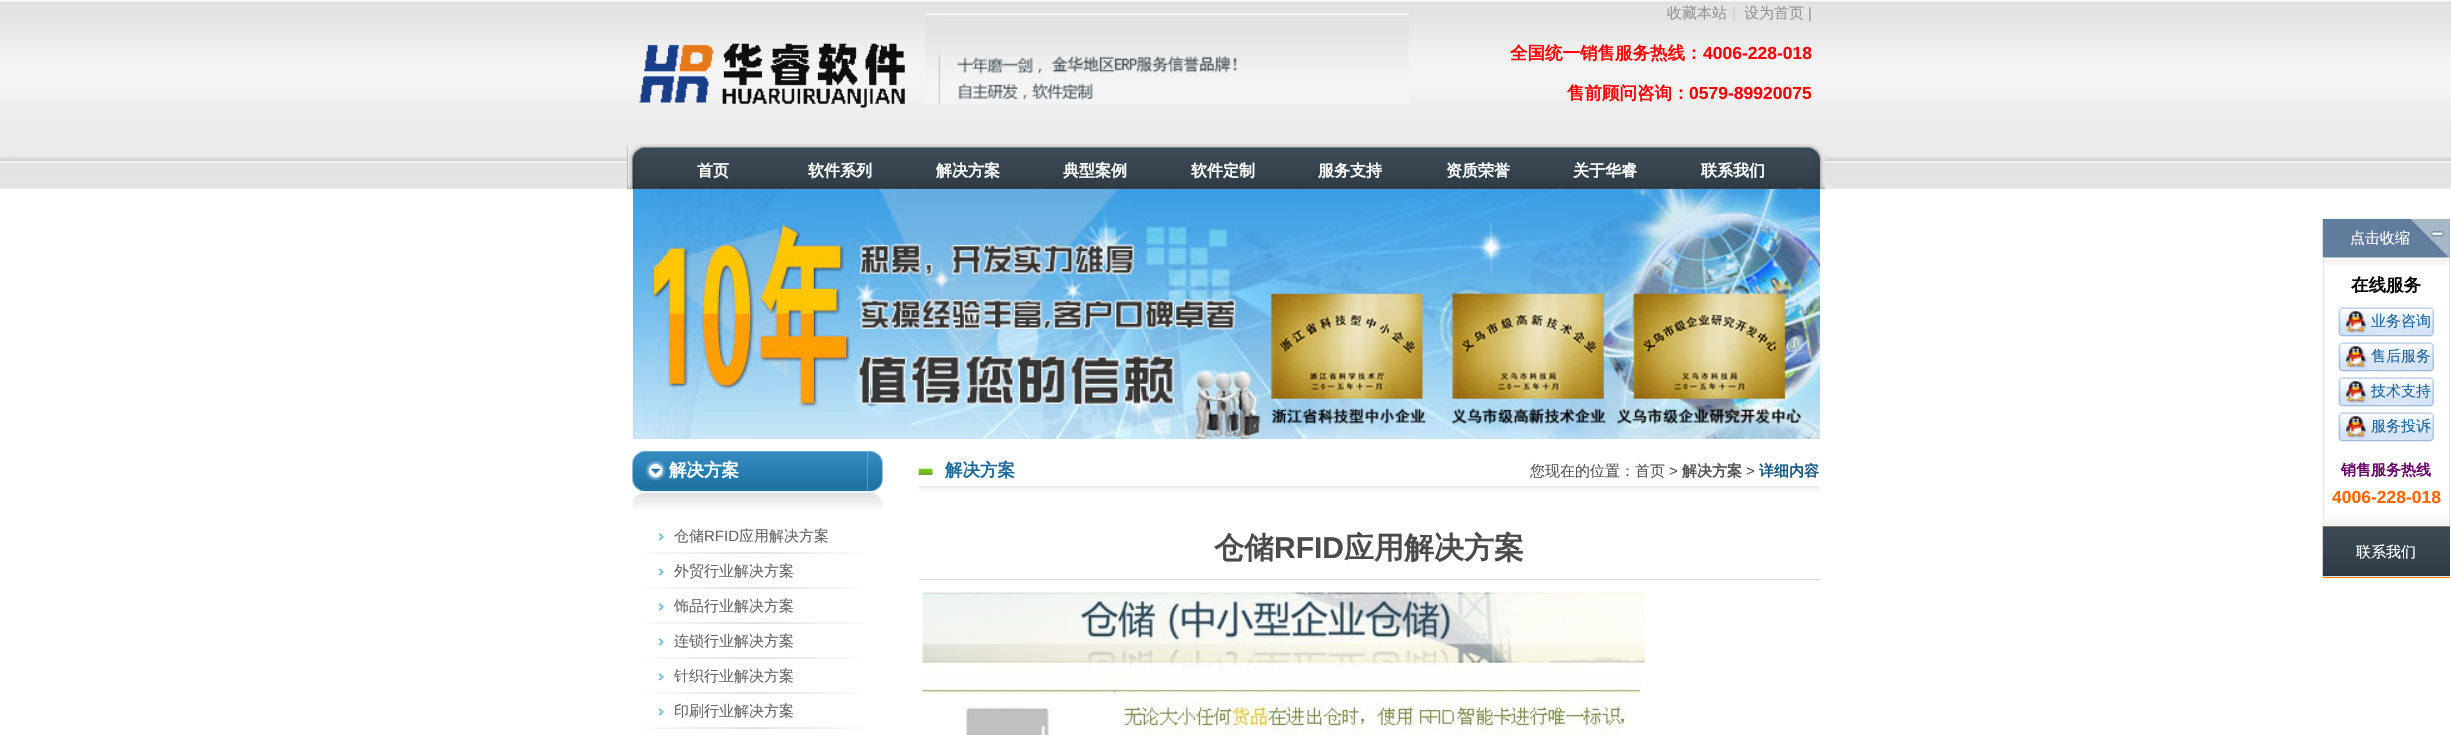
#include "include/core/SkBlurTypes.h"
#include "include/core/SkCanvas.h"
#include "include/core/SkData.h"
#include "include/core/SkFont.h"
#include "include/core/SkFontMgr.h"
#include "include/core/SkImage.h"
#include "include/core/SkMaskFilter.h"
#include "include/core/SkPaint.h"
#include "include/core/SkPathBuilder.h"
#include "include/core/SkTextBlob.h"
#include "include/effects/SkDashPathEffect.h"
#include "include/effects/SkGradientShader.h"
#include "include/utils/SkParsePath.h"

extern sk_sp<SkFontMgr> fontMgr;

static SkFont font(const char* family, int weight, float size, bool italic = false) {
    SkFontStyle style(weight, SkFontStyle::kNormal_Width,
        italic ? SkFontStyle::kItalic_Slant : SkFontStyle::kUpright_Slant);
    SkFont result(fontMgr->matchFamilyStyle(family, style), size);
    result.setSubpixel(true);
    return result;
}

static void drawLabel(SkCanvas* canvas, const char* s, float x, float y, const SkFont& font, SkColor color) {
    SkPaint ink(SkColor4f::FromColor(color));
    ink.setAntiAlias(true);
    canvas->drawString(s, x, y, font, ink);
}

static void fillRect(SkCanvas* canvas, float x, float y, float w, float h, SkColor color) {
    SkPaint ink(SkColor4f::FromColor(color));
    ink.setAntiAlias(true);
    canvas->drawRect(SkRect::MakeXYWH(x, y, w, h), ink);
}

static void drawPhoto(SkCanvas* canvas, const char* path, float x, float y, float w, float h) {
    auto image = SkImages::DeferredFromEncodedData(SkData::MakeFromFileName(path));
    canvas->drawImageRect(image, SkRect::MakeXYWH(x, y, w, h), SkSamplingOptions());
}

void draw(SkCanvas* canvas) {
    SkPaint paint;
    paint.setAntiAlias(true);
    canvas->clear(0xFFFFFFFF);
    drawPhoto(canvas, "assets/img1.png", 0, 0, 2451, 189);
    drawPhoto(canvas, "assets/img2.png", 639, 43, 266, 65);
    drawPhoto(canvas, "assets/img3.png", 925, 13, 484, 92);
    SkFont font1 = font("WenQuanYi Zen Hei", 500, 15);
    drawLabel(canvas, "收藏本站", 1667, 18, font1, 0xFF959595);
    SkFont font2 = font("Liberation Sans", 400, 15);
    drawLabel(canvas, "|", 1732, 18, font2, 0xFFD4D0C8);
    drawLabel(canvas, "设为首页", 1744, 18, font1, 0xFF959595);
    drawLabel(canvas, "|", 1808, 18, font2, 0xFF959595);
    SkFont font3 = font("WenQuanYi Zen Hei", 700, 17.5f);
    drawLabel(canvas, "全国统一销售服务热线：", 1510, 59, font3, 0xFFFF0000);
    SkFont font4 = font("Liberation Sans", 700, 17.5f);
    drawLabel(canvas, "4006-228-018", 1703, 59, font4, 0xFFFF0000);
    drawLabel(canvas, "售前顾问咨询：", 1567, 99, font3, 0xFFFF0000);
    drawLabel(canvas, "0579-89920075", 1689, 99, font4, 0xFFFF0000);
    drawPhoto(canvas, "assets/img4.png", 627, 144, 1198, 45);
    drawPhoto(canvas, "assets/img5.png", 627, 144, 23, 45);
    drawPhoto(canvas, "assets/img6.png", 650, 188, 14, 1);
    drawPhoto(canvas, "assets/img7.png", 661, 188, 117, 1);
    SkFont font5 = font("WenQuanYi Zen Hei", 700, 16);
    drawLabel(canvas, "首页", 697, 176, font5, 0xFFFFFFFF);
    drawPhoto(canvas, "assets/img8.png", 777, 188, 15, 1);
    fillRect(canvas, 789, 188, 116, 1, 0xBF2C3841);
    drawLabel(canvas, "软件系列", 808, 176, font5, 0xFFFFFFFF);
    drawPhoto(canvas, "assets/img6.png", 905, 188, 14, 1);
    drawPhoto(canvas, "assets/img7.png", 916, 188, 117, 1);
    drawLabel(canvas, "解决方案", 936, 176, font5, 0xFFFFFFFF);
    drawPhoto(canvas, "assets/img8.png", 1032, 188, 15, 1);
    fillRect(canvas, 1044, 188, 116, 1, 0xBF2C3841);
    drawLabel(canvas, "典型案例", 1063, 176, font5, 0xFFFFFFFF);
    drawPhoto(canvas, "assets/img6.png", 1160, 188, 14, 1);
    drawPhoto(canvas, "assets/img7.png", 1171, 188, 117, 1);
    drawLabel(canvas, "软件定制", 1191, 176, font5, 0xFFFFFFFF);
    drawPhoto(canvas, "assets/img8.png", 1287, 188, 15, 1);
    fillRect(canvas, 1299, 188, 116, 1, 0xBF2C3841);
    drawLabel(canvas, "服务支持", 1318, 176, font5, 0xFFFFFFFF);
    drawPhoto(canvas, "assets/img6.png", 1415, 188, 14, 1);
    drawPhoto(canvas, "assets/img7.png", 1426, 188, 117, 1);
    drawLabel(canvas, "资质荣誉", 1446, 176, font5, 0xFFFFFFFF);
    drawPhoto(canvas, "assets/img8.png", 1542, 188, 15, 1);
    fillRect(canvas, 1554, 188, 116, 1, 0xBF2C3841);
    drawLabel(canvas, "关于华睿", 1573, 176, font5, 0xFFFFFFFF);
    drawPhoto(canvas, "assets/img6.png", 1670, 188, 14, 1);
    drawPhoto(canvas, "assets/img7.png", 1681, 188, 117, 1);
    drawLabel(canvas, "联系我们", 1701, 176, font5, 0xFFFFFFFF);
    drawPhoto(canvas, "assets/img9.png", 1802, 144, 23, 45);
    drawPhoto(canvas, "assets/img10.png", 633, 189, 1187, 250);
    drawPhoto(canvas, "assets/img11.png", 2322, 218, 128, 40);
    drawLabel(canvas, "点击收缩", 2350, 243, font1, 0xFFFFFFFF);
    drawPhoto(canvas, "assets/img12.png", 2322, 258, 129, 8);
    fillRect(canvas, 2449, 258, 1, 268, 0xFFE3E3E3);
    fillRect(canvas, 2323, 258, 1, 268, 0xFFE3E3E3);
    drawLabel(canvas, "在线服务", 2351, 291, font3, 0xFF000000);
    drawPhoto(canvas, "assets/img13.png", 2338, 307, 96, 30);
    drawLabel(canvas, "业务咨询", 2371, 326, font1, 0xFF1A649D);
    drawPhoto(canvas, "assets/img13.png", 2338, 342, 96, 30);
    drawLabel(canvas, "售后服务", 2371, 361, font1, 0xFF1A649D);
    drawPhoto(canvas, "assets/img13.png", 2338, 377, 96, 30);
    drawLabel(canvas, "技术支持", 2371, 396, font1, 0xFF1A649D);
    drawPhoto(canvas, "assets/img13.png", 2338, 412, 96, 30);
    drawLabel(canvas, "服务投诉", 2371, 431, font1, 0xFF1A649D);
    drawPhoto(canvas, "assets/img14.png", 2323, 514, 126, 11);
    SkFont font6 = font("WenQuanYi Zen Hei", 700, 15);
    drawLabel(canvas, "销售服务热线", 2341, 475, font6, 0xFF660066);
    drawLabel(canvas, "4006-228-018", 2332, 503, font4, 0xFFFF6600);
    fillRect(canvas, 2323, 526, 127, 52, 0xFFFA8400);
    drawPhoto(canvas, "assets/img15.png", 2322, 526, 128, 52);
    fillRect(canvas, 2323, 576, 127, 1, 0xFFE3E3E3);
    drawLabel(canvas, "联系我们", 2356, 557, font1, 0xFFFFFFFF);
    drawPhoto(canvas, "assets/img16.png", 632, 451, 38, 41);
    drawPhoto(canvas, "assets/img17.png", 670, 451, 198, 41);
    drawLabel(canvas, "解决方案", 669, 476, font3, 0xFFFFFFFF);
    drawPhoto(canvas, "assets/img18.png", 867, 451, 16, 41);
    drawPhoto(canvas, "assets/img19.png", 632, 491, 251, 18);
    drawPhoto(canvas, "assets/img20.png", 642, 533, 222, 21);
    drawPhoto(canvas, "assets/img21.png", 679, 553, 148, 1);
    drawLabel(canvas, "仓储", 674, 541, font1, 0xFF666666);
    drawLabel(canvas, "RFID", 704, 541, font2, 0xFF666666);
    drawLabel(canvas, "应用解决方案", 739, 541, font1, 0xFF666666);
    drawPhoto(canvas, "assets/img22.png", 642, 553, 222, 36);
    drawPhoto(canvas, "assets/img23.png", 679, 553, 148, 36);
    drawLabel(canvas, "外贸行业解决方案", 674, 576, font1, 0xFF666666);
    drawPhoto(canvas, "assets/img22.png", 642, 588, 222, 36);
    drawPhoto(canvas, "assets/img23.png", 679, 588, 148, 36);
    drawLabel(canvas, "饰品行业解决方案", 674, 611, font1, 0xFF666666);
    drawPhoto(canvas, "assets/img22.png", 642, 623, 222, 36);
    drawPhoto(canvas, "assets/img23.png", 679, 623, 148, 36);
    drawLabel(canvas, "连锁行业解决方案", 674, 646, font1, 0xFF666666);
    drawPhoto(canvas, "assets/img22.png", 642, 658, 222, 36);
    drawPhoto(canvas, "assets/img23.png", 679, 658, 148, 36);
    drawLabel(canvas, "针织行业解决方案", 674, 681, font1, 0xFF666666);
    drawPhoto(canvas, "assets/img22.png", 642, 693, 222, 36);
    drawPhoto(canvas, "assets/img23.png", 679, 693, 148, 36);
    drawLabel(canvas, "印刷行业解决方案", 674, 716, font1, 0xFF666666);
    fillRect(canvas, 679, 728, 148, 1, 0x40FFFFFF);
    fillRect(canvas, 679, 728, 148, 1, 0x40FFFFFF);
    drawPhoto(canvas, "assets/img24.png", 918, 486, 902, 5);
    drawPhoto(canvas, "assets/img25.png", 918, 468, 15, 7);
    drawLabel(canvas, "解决方案", 945, 476, font3, 0xFF1C6A98);
    drawLabel(canvas, "您现在的位置：首页", 1530, 476, font1, 0xFF555555);
    drawLabel(canvas, ">", 1669, 476, font2, 0xFF555555);
    drawLabel(canvas, "解决方案", 1682, 476, font6, 0xFF555555);
    drawLabel(canvas, ">", 1746, 476, font2, 0xFF555555);
    drawLabel(canvas, "详细内容", 1759, 476, font6, 0xFF1A597F);
    SkFont font7 = font("WenQuanYi Zen Hei", 700, 30);
    drawLabel(canvas, "仓储", 1214, 558, font7, 0xFF4B4B4B);
    SkFont font8 = font("Liberation Sans", 700, 30);
    drawLabel(canvas, "RFID", 1274, 558, font8, 0xFF4B4B4B);
    drawLabel(canvas, "应用解决方案", 1344, 558, font7, 0xFF4B4B4B);
    fillRect(canvas, 919, 579, 901, 1, 0xFFD9D9D9);
    drawPhoto(canvas, "assets/img26.png", 922, 592, 723, 143);
}
